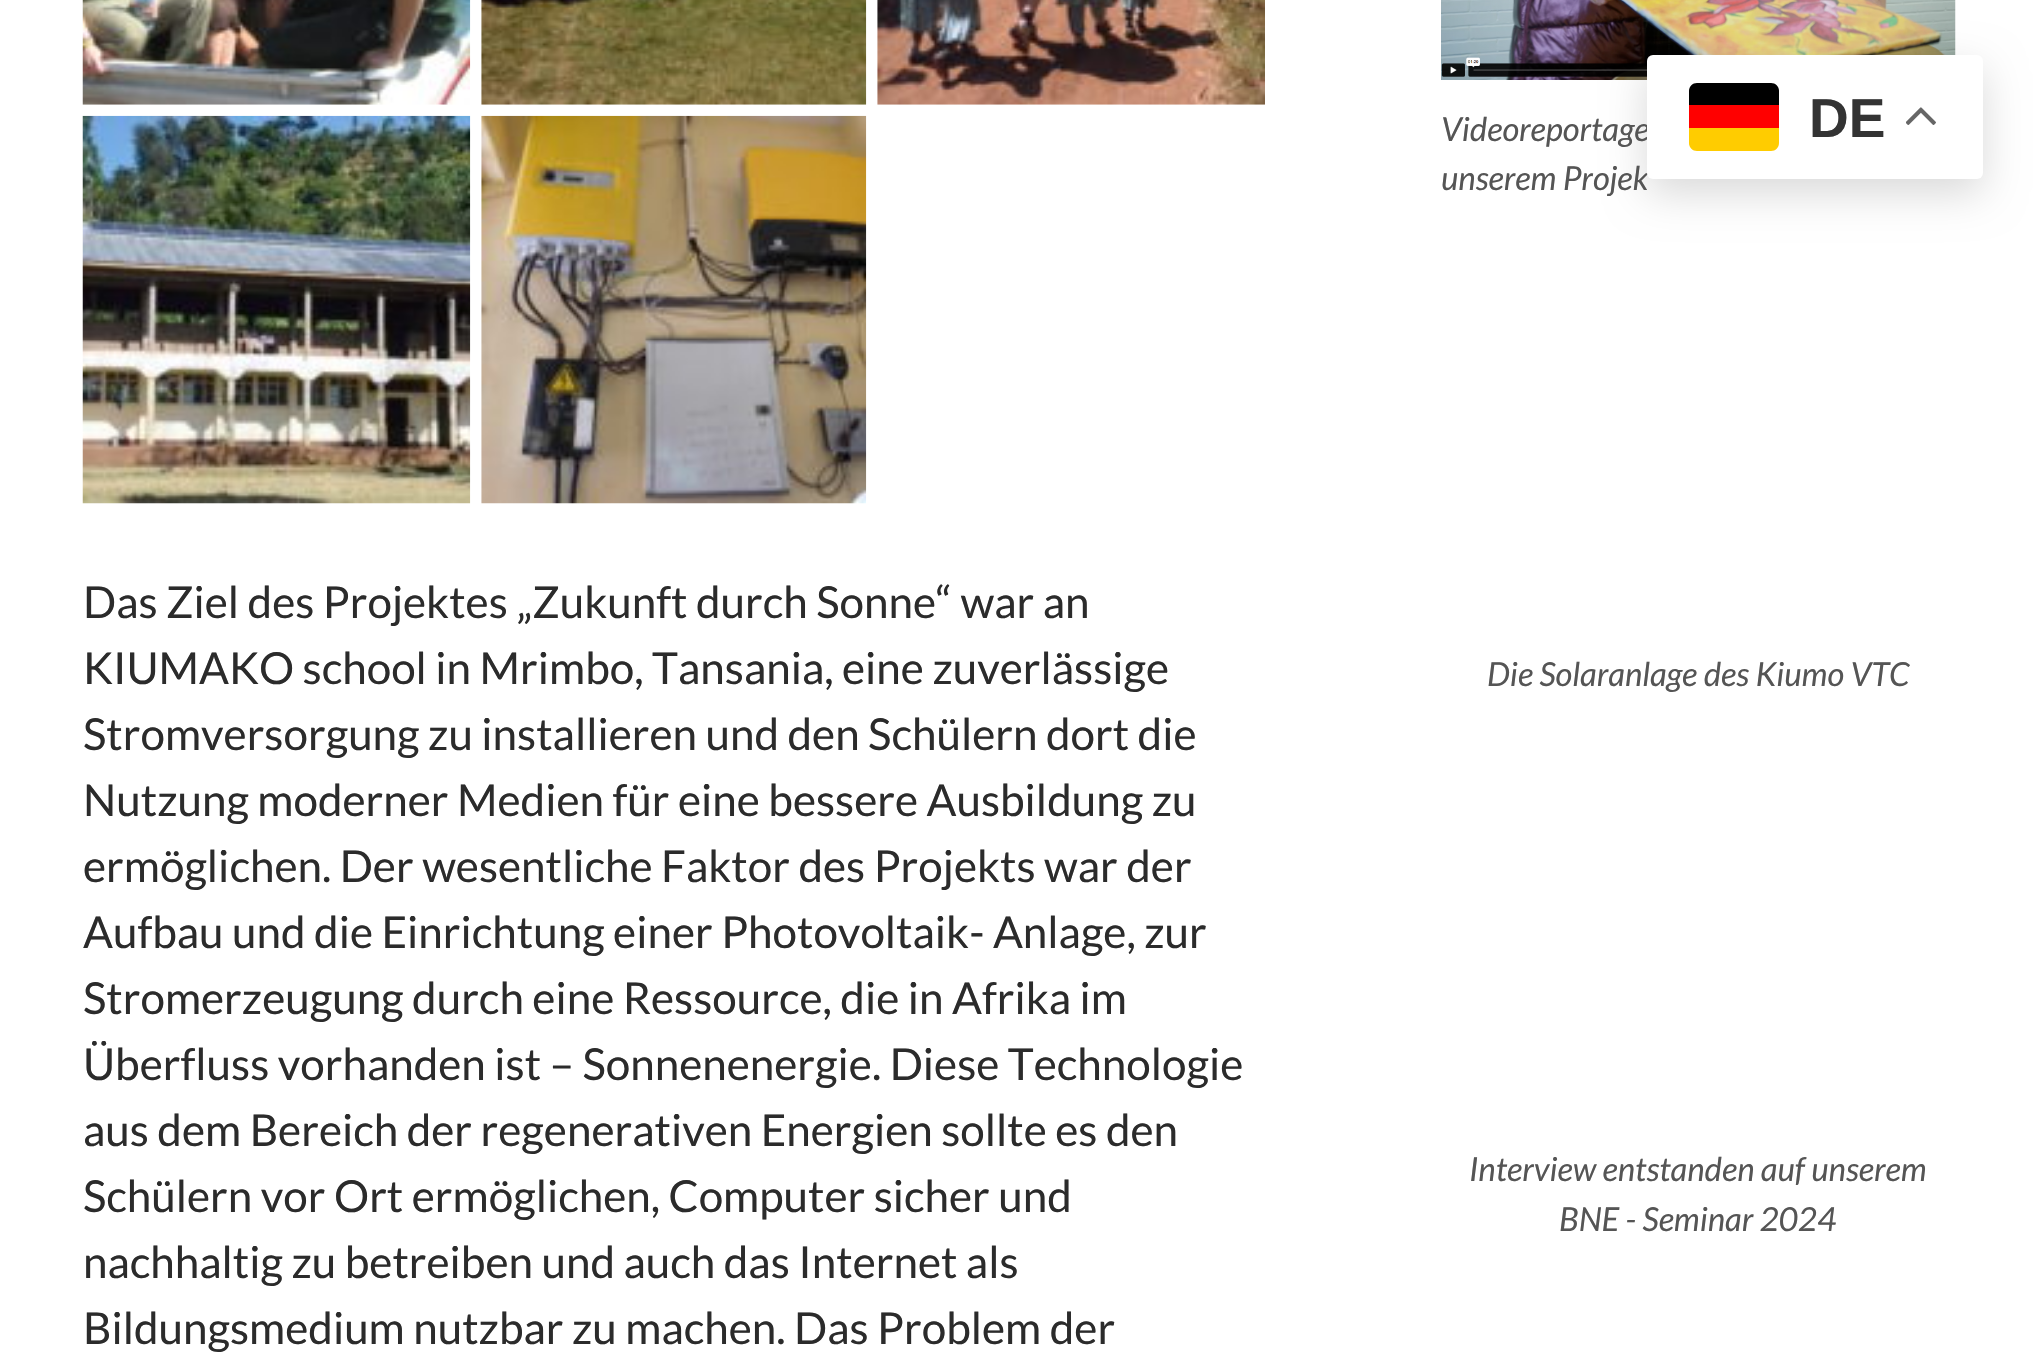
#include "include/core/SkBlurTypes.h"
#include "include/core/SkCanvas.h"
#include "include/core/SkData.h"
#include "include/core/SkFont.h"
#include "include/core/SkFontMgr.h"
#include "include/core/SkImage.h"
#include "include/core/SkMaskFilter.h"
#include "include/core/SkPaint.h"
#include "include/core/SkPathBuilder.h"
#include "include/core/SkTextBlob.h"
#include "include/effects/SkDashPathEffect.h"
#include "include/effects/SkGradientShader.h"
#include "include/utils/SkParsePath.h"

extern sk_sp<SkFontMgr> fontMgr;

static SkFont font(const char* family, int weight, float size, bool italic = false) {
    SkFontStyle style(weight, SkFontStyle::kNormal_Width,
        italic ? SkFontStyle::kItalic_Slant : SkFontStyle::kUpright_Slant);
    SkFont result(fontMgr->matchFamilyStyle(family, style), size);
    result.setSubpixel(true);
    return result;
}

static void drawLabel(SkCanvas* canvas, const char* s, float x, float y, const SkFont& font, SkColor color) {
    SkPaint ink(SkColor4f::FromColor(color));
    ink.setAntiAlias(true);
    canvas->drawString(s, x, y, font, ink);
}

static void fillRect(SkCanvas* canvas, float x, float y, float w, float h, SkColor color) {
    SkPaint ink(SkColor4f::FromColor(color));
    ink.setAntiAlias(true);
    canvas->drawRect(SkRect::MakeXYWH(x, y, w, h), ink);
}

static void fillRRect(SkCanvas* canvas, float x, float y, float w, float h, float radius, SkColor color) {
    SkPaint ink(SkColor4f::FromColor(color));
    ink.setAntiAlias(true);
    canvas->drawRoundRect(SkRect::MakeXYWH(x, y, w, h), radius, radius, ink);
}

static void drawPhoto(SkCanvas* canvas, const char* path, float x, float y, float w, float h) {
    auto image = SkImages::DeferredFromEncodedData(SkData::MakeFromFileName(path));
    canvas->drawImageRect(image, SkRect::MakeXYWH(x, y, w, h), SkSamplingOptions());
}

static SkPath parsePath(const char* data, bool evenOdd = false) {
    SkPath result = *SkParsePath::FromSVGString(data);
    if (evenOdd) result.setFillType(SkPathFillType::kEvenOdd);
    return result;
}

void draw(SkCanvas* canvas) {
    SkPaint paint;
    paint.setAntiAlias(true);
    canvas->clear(0xFFFFFFFF);
    drawPhoto(canvas, "assets/img7.png", 1441, 0, 515, 80);
    paint.setColor(0x26000000);
    paint.setMaskFilter(SkMaskFilter::MakeBlur(kNormal_SkBlurStyle, 20.5f));
    canvas->drawRoundRect(SkRect::MakeXYWH(1647, 69, 336, 124), 6, 6, paint);
    paint.setMaskFilter(nullptr);
    SkFont font1 = font("Lato", 400, 33, true);
    drawLabel(canvas, "Videoreportage", 1441, 141, font1, 0xFF555555);
    drawLabel(canvas, "unserem Projek", 1441, 190, font1, 0xFF555555);
    fillRRect(canvas, 1647, 55, 336, 124, 6, 0xFFFFFFFF);
    paint.setColor(0xFFFFCC00);
    canvas->drawPath(parsePath("M1689 128H1779V143C1779 147.5 1775.5 151 1771 151H1697C1692.5 151 1689 147.5 1689 143Z"), paint);
    paint.setColor(0xFF000000);
    canvas->drawPath(parsePath("M1697 83H1771C1775.5 83 1779 86.5 1779 91V105H1689V91C1689 86.5 1692.5 83 1697 83Z"), paint);
    fillRect(canvas, 1689, 105, 90, 23, 0xFFFF0000);
    SkFont font2 = font("Liberation Sans", 700, 55);
    drawLabel(canvas, "DE", 1809, 137, font2, 0xFF333333);
    drawPhoto(canvas, "assets/img1.png", 1906, 107, 30, 18);
    drawPhoto(canvas, "assets/img2.png", 82, 0, 389, 105);
    drawPhoto(canvas, "assets/img3.png", 481, 0, 386, 105);
    drawPhoto(canvas, "assets/img4.png", 877, 0, 388, 105);
    drawPhoto(canvas, "assets/img5.png", 82, 115, 389, 389);
    drawPhoto(canvas, "assets/img6.png", 481, 115, 386, 389);
    SkFont font3 = font("Lato", 400, 44);
    drawLabel(canvas, "Das Ziel des Projektes „Zukunft durch Sonne“ war an", 83, 618, font3, 0xFF2B2B2B);
    drawLabel(canvas, "KIUMAKO school in Mrimbo, Tansania, eine zuverlässige", 83, 684, font3, 0xFF2B2B2B);
    drawLabel(canvas, "Stromversorgung zu installieren und den Schülern dort die", 83, 750, font3, 0xFF2B2B2B);
    drawLabel(canvas, "Nutzung moderner Medien für eine bessere Ausbildung zu", 83, 816, font3, 0xFF2B2B2B);
    drawLabel(canvas, "ermöglichen. Der wesentliche Faktor des Projekts war der", 83, 882, font3, 0xFF2B2B2B);
    drawLabel(canvas, "Aufbau und die Einrichtung einer Photovoltaik- Anlage, zur", 83, 948, font3, 0xFF2B2B2B);
    drawLabel(canvas, "Stromerzeugung durch eine Ressource, die in Afrika im", 83, 1014, font3, 0xFF2B2B2B);
    drawLabel(canvas, "Überfluss vorhanden ist – Sonnenenergie. Diese Technologie", 83, 1080, font3, 0xFF2B2B2B);
    drawLabel(canvas, "aus dem Bereich der regenerativen Energien sollte es den", 83, 1146, font3, 0xFF2B2B2B);
    drawLabel(canvas, "Schülern vor Ort ermöglichen, Computer sicher und", 83, 1212, font3, 0xFF2B2B2B);
    drawLabel(canvas, "nachhaltig zu betreiben und auch das Internet als", 83, 1278, font3, 0xFF2B2B2B);
    drawLabel(canvas, "Bildungsmedium nutzbar zu machen. Das Problem der", 83, 1344, font3, 0xFF2B2B2B);
    drawLabel(canvas, "Die Solaranlage des Kiumo VTC", 1487, 686, font1, 0xFF555555);
    drawLabel(canvas, "Interview entstanden auf unserem", 1469, 1181, font1, 0xFF555555);
    drawLabel(canvas, "BNE - Seminar 2024", 1559, 1231, font1, 0xFF555555);
}
